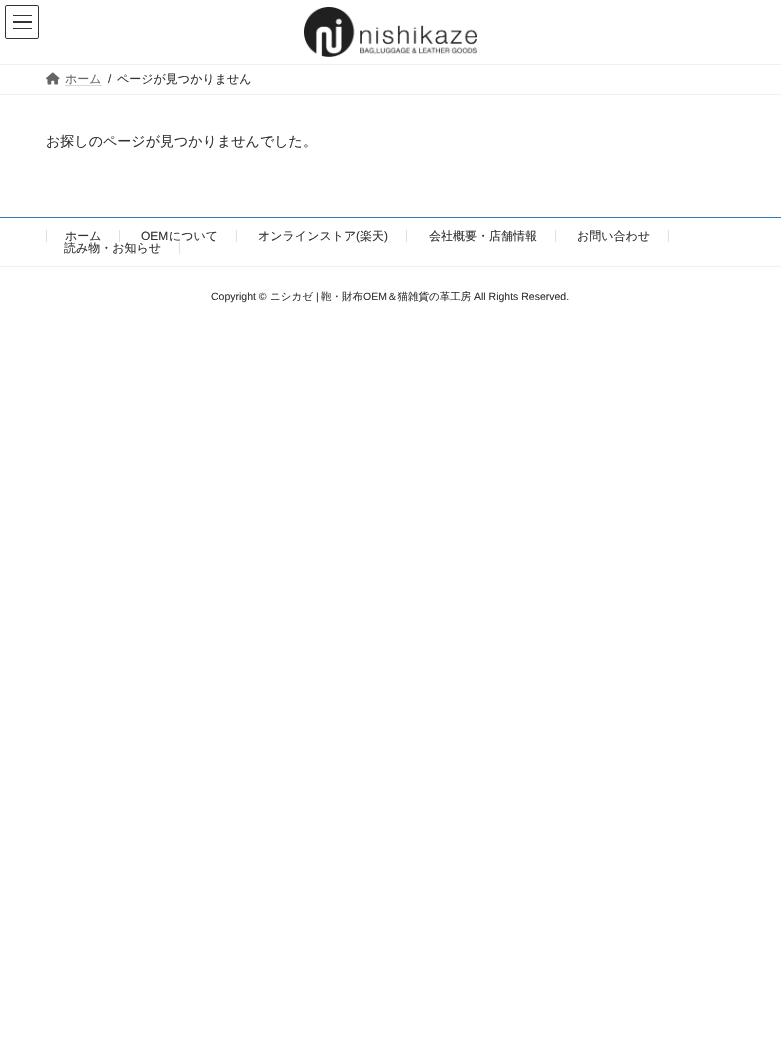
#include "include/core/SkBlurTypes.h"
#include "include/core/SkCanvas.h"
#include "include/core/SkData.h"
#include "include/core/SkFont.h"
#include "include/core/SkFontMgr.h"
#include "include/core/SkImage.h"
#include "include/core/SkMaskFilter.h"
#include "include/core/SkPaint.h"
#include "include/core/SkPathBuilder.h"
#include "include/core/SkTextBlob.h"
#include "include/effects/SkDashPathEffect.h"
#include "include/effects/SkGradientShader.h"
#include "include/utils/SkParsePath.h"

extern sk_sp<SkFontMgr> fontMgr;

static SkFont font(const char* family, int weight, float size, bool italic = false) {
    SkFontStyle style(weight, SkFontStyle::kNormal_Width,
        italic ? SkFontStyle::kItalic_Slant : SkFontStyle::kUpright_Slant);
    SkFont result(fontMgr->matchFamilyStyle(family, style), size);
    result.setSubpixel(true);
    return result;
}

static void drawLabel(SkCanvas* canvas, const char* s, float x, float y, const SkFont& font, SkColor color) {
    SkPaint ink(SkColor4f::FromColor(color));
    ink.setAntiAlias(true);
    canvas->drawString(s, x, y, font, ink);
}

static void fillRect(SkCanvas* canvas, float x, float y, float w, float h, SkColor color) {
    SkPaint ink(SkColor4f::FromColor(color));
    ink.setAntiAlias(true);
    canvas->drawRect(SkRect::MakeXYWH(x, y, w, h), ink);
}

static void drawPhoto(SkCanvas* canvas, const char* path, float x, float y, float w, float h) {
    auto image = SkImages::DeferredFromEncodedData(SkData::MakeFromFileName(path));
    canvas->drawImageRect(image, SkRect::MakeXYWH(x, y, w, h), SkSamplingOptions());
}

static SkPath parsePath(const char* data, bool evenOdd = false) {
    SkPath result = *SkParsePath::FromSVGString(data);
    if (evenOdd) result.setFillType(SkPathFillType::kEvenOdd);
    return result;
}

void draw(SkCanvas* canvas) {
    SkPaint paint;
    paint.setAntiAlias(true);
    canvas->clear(0xFFFFFFFF);
    fillRect(canvas, 13, 15, 19, 1, 0xFF333333);
    fillRect(canvas, 13, 21, 19, 2, 0xFF333333);
    fillRect(canvas, 13, 28, 19, 1, 0xFF333333);
    paint.setStroke(true);
    paint.setStrokeWidth(1);
    paint.setColor(0xFF333333);
    canvas->drawRoundRect(SkRect::MakeXYWH(5.5f, 5.5f, 33, 33), 1.5f, 1.5f, paint);
    drawPhoto(canvas, "assets/img1.png", 304, 7, 173, 50);
    fillRect(canvas, 0, 64, 781, 1, 0xFFF0F0F0);
    fillRect(canvas, 0, 94, 781, 1, 0xFFF0F0F0);
    drawPhoto(canvas, "assets/img2.png", 46, 72, 14, 13);
    SkFont font1 = font("WenQuanYi Zen Hei", 500, 12);
    drawLabel(canvas, "ホーム", 65, 83, font1, 0xFF666666);
    paint.setColor(0xFFB3B3B3);
    paint.setPathEffect(SkDashPathEffect::Make({{1, 1}}, 0));
    canvas->drawPath(parsePath("M65.5 85.5H102"), paint);
    paint.setPathEffect(nullptr);
    SkFont font2 = font("Liberation Sans", 400, 12);
    drawLabel(canvas, "/", 108, 83, font2, 0xFF333333);
    drawLabel(canvas, "ページが見つかりません", 117, 83, font1, 0xFF333333);
    SkFont font3 = font("WenQuanYi Zen Hei", 500, 14);
    drawLabel(canvas, "お探しのページが見つかりませんでした。", 46, 146, font3, 0xFF333333);
    fillRect(canvas, 0, 217, 781, 1, 0xFF337AB7);
    fillRect(canvas, 0, 266, 781, 1, 0xFFF0F0F0);
    fillRect(canvas, 119, 230, 1, 12, 0xFFE0E0E0);
    fillRect(canvas, 46, 230, 1, 12, 0xFFE0E0E0);
    drawLabel(canvas, "ホーム", 65, 240, font1, 0xFF333333);
    fillRect(canvas, 236, 230, 1, 12, 0xFFE0E0E0);
    drawLabel(canvas, "OEM", 141, 240, font2, 0xFF333333);
    drawLabel(canvas, "について", 169, 240, font1, 0xFF333333);
    fillRect(canvas, 406, 230, 1, 12, 0xFFE0E0E0);
    drawLabel(canvas, "オンラインストア", 258, 240, font1, 0xFF333333);
    drawLabel(canvas, "(", 356, 240, font2, 0xFF333333);
    drawLabel(canvas, "楽天", 360, 240, font1, 0xFF333333);
    drawLabel(canvas, ")", 384, 240, font2, 0xFF333333);
    fillRect(canvas, 555, 230, 1, 12, 0xFFE0E0E0);
    drawLabel(canvas, "会社概要・店舗情報", 429, 240, font1, 0xFF333333);
    fillRect(canvas, 668, 230, 1, 12, 0xFFE0E0E0);
    drawLabel(canvas, "お問い合わせ", 577, 240, font1, 0xFF333333);
    fillRect(canvas, 179, 242, 1, 12, 0xFFE0E0E0);
    drawLabel(canvas, "読み物・お知らせ", 64, 252, font1, 0xFF333333);
    SkFont font4 = font("Liberation Sans", 400, 10.5f);
    drawLabel(canvas, "Copyright ©", 211, 300, font4, 0xFF333333);
    SkFont font5 = font("WenQuanYi Zen Hei", 500, 10.5f);
    drawLabel(canvas, "ニシカゼ", 270, 300, font5, 0xFF333333);
    drawLabel(canvas, "|", 316, 300, font4, 0xFF333333);
    drawLabel(canvas, "鞄・財布", 321, 300, font5, 0xFF333333);
    drawLabel(canvas, "OEM", 363, 300, font4, 0xFF333333);
    drawLabel(canvas, "＆猫雑貨の革工房", 387, 300, font5, 0xFF333333);
    drawLabel(canvas, "All Rights Reserved.", 474, 300, font4, 0xFF333333);
}
